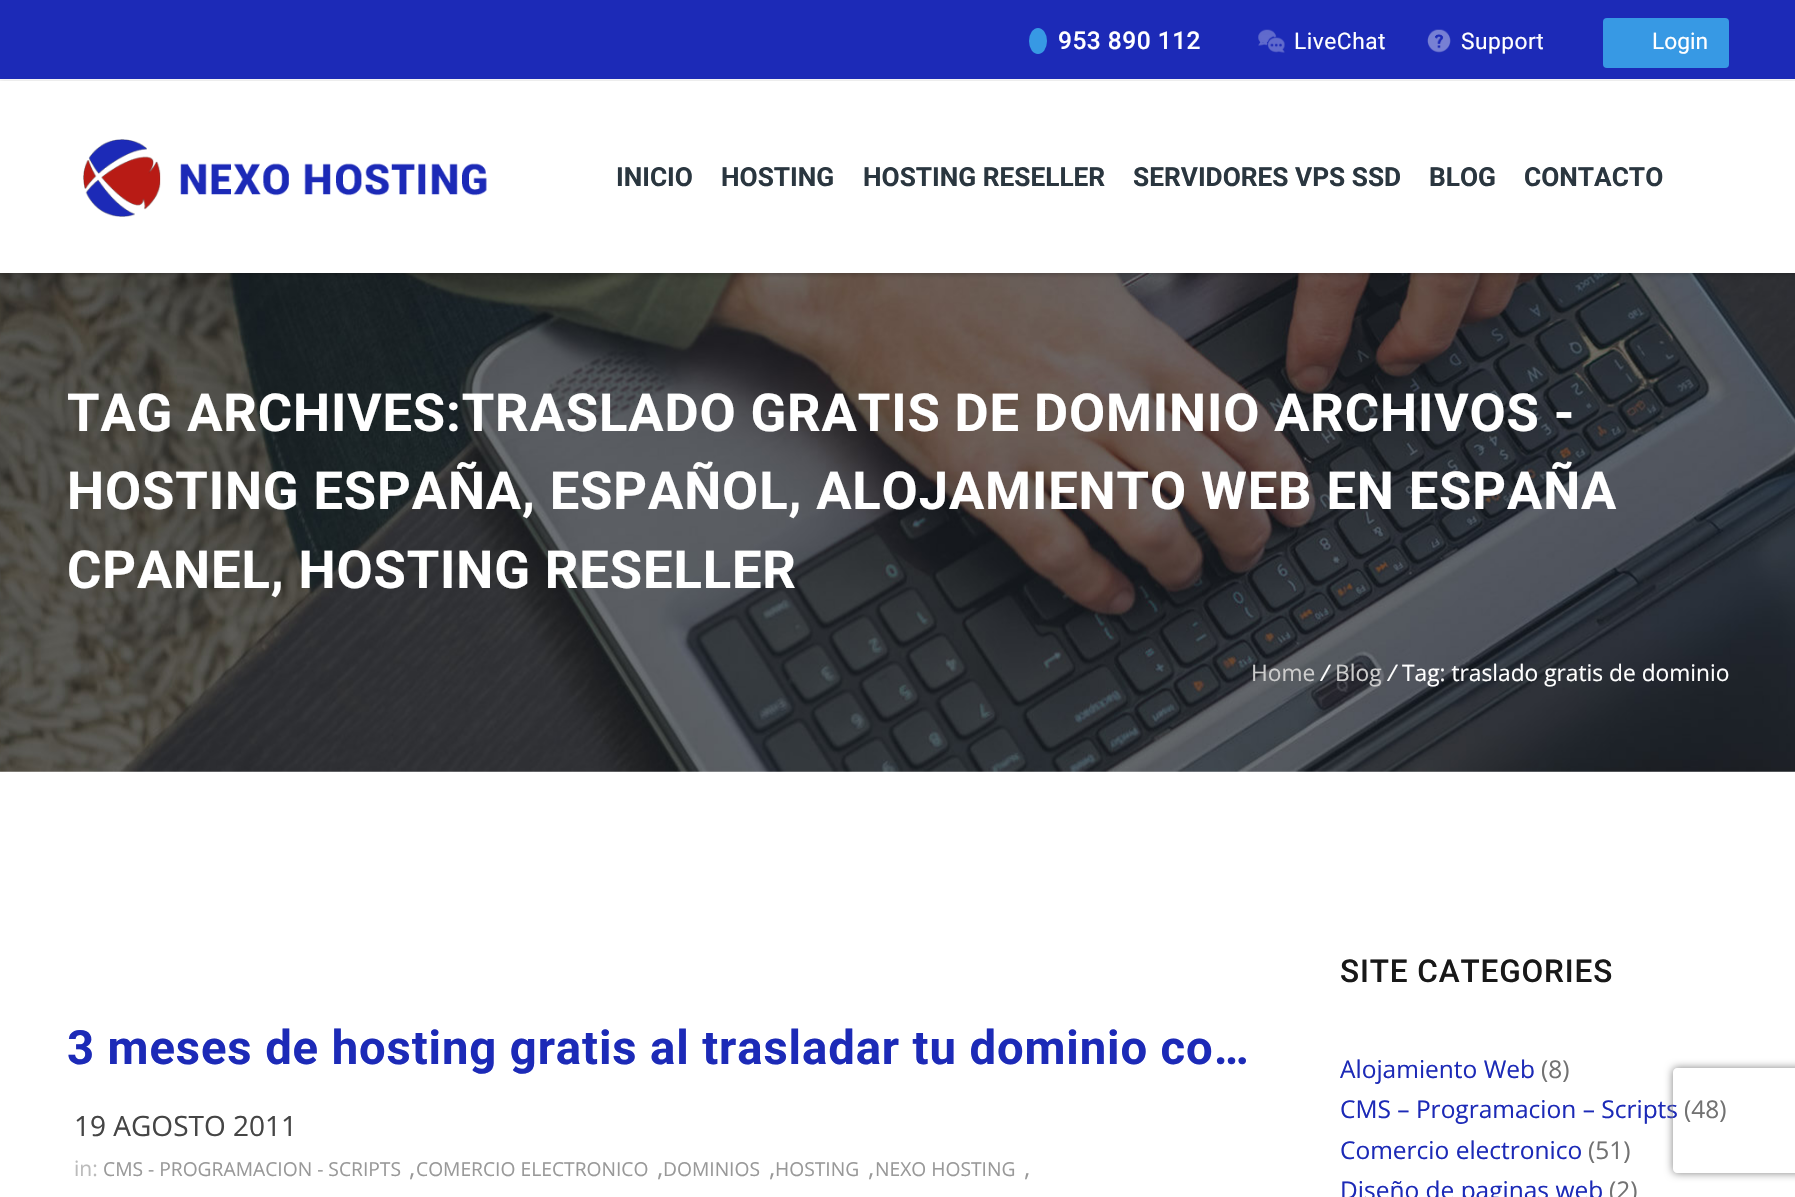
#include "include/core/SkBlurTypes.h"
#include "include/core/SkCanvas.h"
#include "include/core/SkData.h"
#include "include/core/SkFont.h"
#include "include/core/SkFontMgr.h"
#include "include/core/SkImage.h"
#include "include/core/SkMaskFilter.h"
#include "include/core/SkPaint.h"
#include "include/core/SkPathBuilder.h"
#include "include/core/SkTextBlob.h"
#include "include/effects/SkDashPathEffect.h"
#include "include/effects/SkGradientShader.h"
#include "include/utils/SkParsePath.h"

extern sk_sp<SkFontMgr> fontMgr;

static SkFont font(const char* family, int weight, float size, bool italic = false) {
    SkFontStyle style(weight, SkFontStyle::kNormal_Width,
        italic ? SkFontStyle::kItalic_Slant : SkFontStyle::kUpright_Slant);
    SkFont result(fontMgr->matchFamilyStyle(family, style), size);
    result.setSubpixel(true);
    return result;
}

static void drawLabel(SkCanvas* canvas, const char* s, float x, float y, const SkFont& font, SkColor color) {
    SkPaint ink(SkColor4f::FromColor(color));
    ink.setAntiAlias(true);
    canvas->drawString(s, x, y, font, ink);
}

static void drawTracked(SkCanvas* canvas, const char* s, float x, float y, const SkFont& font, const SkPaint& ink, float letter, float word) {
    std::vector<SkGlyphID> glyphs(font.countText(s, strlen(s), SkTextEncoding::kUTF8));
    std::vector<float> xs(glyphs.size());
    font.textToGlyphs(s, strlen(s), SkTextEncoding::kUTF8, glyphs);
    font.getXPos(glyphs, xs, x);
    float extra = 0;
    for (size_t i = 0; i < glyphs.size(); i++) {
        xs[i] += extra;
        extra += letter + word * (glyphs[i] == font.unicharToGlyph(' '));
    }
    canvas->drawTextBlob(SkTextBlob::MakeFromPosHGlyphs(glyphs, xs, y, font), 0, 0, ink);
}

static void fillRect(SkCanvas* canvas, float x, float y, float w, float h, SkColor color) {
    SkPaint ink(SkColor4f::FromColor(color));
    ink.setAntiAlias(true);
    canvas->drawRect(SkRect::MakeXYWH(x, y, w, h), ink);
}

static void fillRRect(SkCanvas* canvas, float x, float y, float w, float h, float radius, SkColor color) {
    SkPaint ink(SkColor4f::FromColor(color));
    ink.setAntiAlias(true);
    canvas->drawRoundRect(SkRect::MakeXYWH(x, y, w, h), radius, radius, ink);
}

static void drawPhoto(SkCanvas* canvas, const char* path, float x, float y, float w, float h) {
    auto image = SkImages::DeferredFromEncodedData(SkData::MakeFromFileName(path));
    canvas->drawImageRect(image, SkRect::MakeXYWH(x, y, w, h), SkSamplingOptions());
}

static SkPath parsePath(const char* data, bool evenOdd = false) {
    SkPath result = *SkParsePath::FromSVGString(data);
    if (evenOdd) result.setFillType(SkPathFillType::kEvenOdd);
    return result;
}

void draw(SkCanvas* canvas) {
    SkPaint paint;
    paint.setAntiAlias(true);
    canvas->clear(0xFFFAFAFA);
    fillRect(canvas, 0, 0, 1795, 79, 0xFF1C2AB7);
    SkFont font1 = font("Roboto", 500, 24.5f);
    paint.setColor(0xFFFFFFFF);
    drawTracked(canvas, "953 890 112", 1058, 49, font1, paint, 0.5f, 0);
    paint.setColor(0xFF3799E4);
    canvas->drawOval(SkRect::MakeXYWH(1029, 28, 18, 26), paint);
    drawPhoto(canvas, "assets/img1.png", 1258, 29, 27, 24);
    SkFont font2 = font("Roboto", 400, 22.75f);
    paint.setColor(0xFFFFFFFF);
    drawTracked(canvas, "LiveChat", 1294, 49, font2, paint, 0.5f, 0);
    drawPhoto(canvas, "assets/img2.png", 1427, 29, 24, 24);
    drawTracked(canvas, "Support", 1461, 49, font2, paint, 0.5f, 0);
    fillRRect(canvas, 1603, 18, 126, 50, 4, 0xFF3799E4);
    drawLabel(canvas, "Login", 1652, 49, font2, 0xFFFFFFFF);
    drawPhoto(canvas, "assets/img4.png", 0, 273, 1795, 499);
    paint.setColor(0x33000000);
    paint.setMaskFilter(SkMaskFilter::MakeBlur(kNormal_SkBlurStyle, 2));
    canvas->drawRect(SkRect::MakeXYWH(0, 82, 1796, 193), paint);
    paint.setMaskFilter(nullptr);
    fillRect(canvas, 0, 81, 1795, 192, 0xFFFFFFFF);
    drawPhoto(canvas, "assets/img3.png", 83, 139, 404, 78);
    SkFont font3 = font("Roboto", 700, 26.25f);
    drawLabel(canvas, "INICIO", 616, 186, font3, 0xFF2A363F);
    drawLabel(canvas, "HOSTING", 721, 186, font3, 0xFF2A363F);
    drawLabel(canvas, "HOSTING RESELLER", 863, 186, font3, 0xFF2A363F);
    drawLabel(canvas, "SERVIDORES VPS SSD", 1133, 186, font3, 0xFF2A363F);
    drawLabel(canvas, "BLOG", 1429, 186, font3, 0xFF2A363F);
    drawLabel(canvas, "CONTACTO", 1524, 186, font3, 0xFF2A363F);
    SkFont font4 = font("Roboto", 700, 52.5f);
    paint.setColor(0xFFFFFFFF);
    drawTracked(canvas, "TAG ARCHIVES:TRASLADO GRATIS DE DOMINIO ARCHIVOS -", 67, 431, font4, paint, 0.88f, 0);
    drawTracked(canvas, "HOSTING ESPAÑA, ESPAÑOL, ALOJAMIENTO WEB EN ESPAÑA", 67, 509, font4, paint, 0.88f, 0);
    drawTracked(canvas, "CPANEL, HOSTING RESELLER", 67, 588, font4, paint, 0.88f, 0);
    SkFont font5 = font("Open Sans", 400, 22.75f);
    drawLabel(canvas, "Home", 1251, 681, font5, 0xFFCCCCCC);
    SkFont font6 = font("Open Sans", 400, 22.75f, true);
    drawLabel(canvas, "/", 1321, 681, font6, 0xFFFFFFFF);
    drawLabel(canvas, "Blog", 1335, 681, font5, 0xFFCCCCCC);
    drawLabel(canvas, "/", 1388, 681, font6, 0xFFFFFFFF);
    drawLabel(canvas, "Tag: traslado gratis de dominio", 1402, 681, font5, 0xFFFFFFFF);
    fillRect(canvas, 0, 772, 1795, 425, 0xFFFFFFFF);
    SkFont font7 = font("Roboto", 700, 47.25f);
    paint.setColor(0xFF1C2AB7);
    drawTracked(canvas, "3 meses de hosting gratis al trasladar tu dominio co…", 67, 1064, font7, paint, 0.88f, 0);
    SkFont font8 = font("Open Sans", 400, 28);
    drawLabel(canvas, "19 AGOSTO 2011", 74, 1136, font8, 0xFF454545);
    SkFont font9 = font("Open Sans", 400, 21);
    drawLabel(canvas, "in:", 74, 1176, font9, 0xFFBBBBBB);
    SkFont font10 = font("Open Sans", 400, 19.25f);
    drawLabel(canvas, "CMS - PROGRAMACION - SCRIPTS", 103, 1176, font10, 0xFF999999);
    SkFont font11 = font("Open Sans", 400, 24.5f);
    drawLabel(canvas, ",", 409, 1176, font11, 0xFF999999);
    drawLabel(canvas, "COMERCIO ELECTRONICO", 416, 1176, font10, 0xFF999999);
    drawLabel(canvas, ",", 657, 1176, font11, 0xFF999999);
    drawLabel(canvas, "DOMINIOS", 663, 1176, font10, 0xFF999999);
    drawLabel(canvas, ",", 769, 1176, font11, 0xFF999999);
    drawLabel(canvas, "HOSTING", 775, 1176, font10, 0xFF999999);
    drawLabel(canvas, ",", 868, 1176, font11, 0xFF999999);
    drawLabel(canvas, "NEXO HOSTING", 875, 1176, font10, 0xFF999999);
    drawLabel(canvas, ",", 1024, 1176, font11, 0xFF999999);
    SkFont font12 = font("Roboto", 500, 31.5f);
    paint.setColor(0xFF181818);
    drawTracked(canvas, "SITE CATEGORIES", 1340, 982, font12, paint, 0.88f, 0);
    drawLabel(canvas, "Alojamiento Web", 1340, 1078, font11, 0xFF1C2AB7);
    drawLabel(canvas, "(8)", 1541, 1078, font11, 0xFF727272);
    drawLabel(canvas, "CMS – Programacion – Scripts", 1340, 1118, font11, 0xFF1C2AB7);
    drawLabel(canvas, "(48)", 1684, 1118, font11, 0xFF727272);
    drawLabel(canvas, "Comercio electronico", 1340, 1159, font11, 0xFF1C2AB7);
    drawLabel(canvas, "(51)", 1588, 1159, font11, 0xFF727272);
    drawLabel(canvas, "Diseño de paginas web", 1340, 1199, font11, 0xFF1C2AB7);
    drawLabel(canvas, "(2)", 1609, 1199, font11, 0xFF727272);
    canvas->save();
    canvas->clipPath(parsePath("M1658 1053H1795V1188H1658ZM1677 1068H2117C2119 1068 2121 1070 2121 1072V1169C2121 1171 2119 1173 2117 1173H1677C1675 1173 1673 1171 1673 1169V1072C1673 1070 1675 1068 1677 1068Z", true), true);
    paint.setColor(0xFF808080);
    paint.setMaskFilter(SkMaskFilter::MakeBlur(kNormal_SkBlurStyle, 4.5f));
    canvas->drawRoundRect(SkRect::MakeXYWH(1673, 1068, 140, 105), 4, 4, paint);
    paint.setMaskFilter(nullptr);
    canvas->restore();
}
